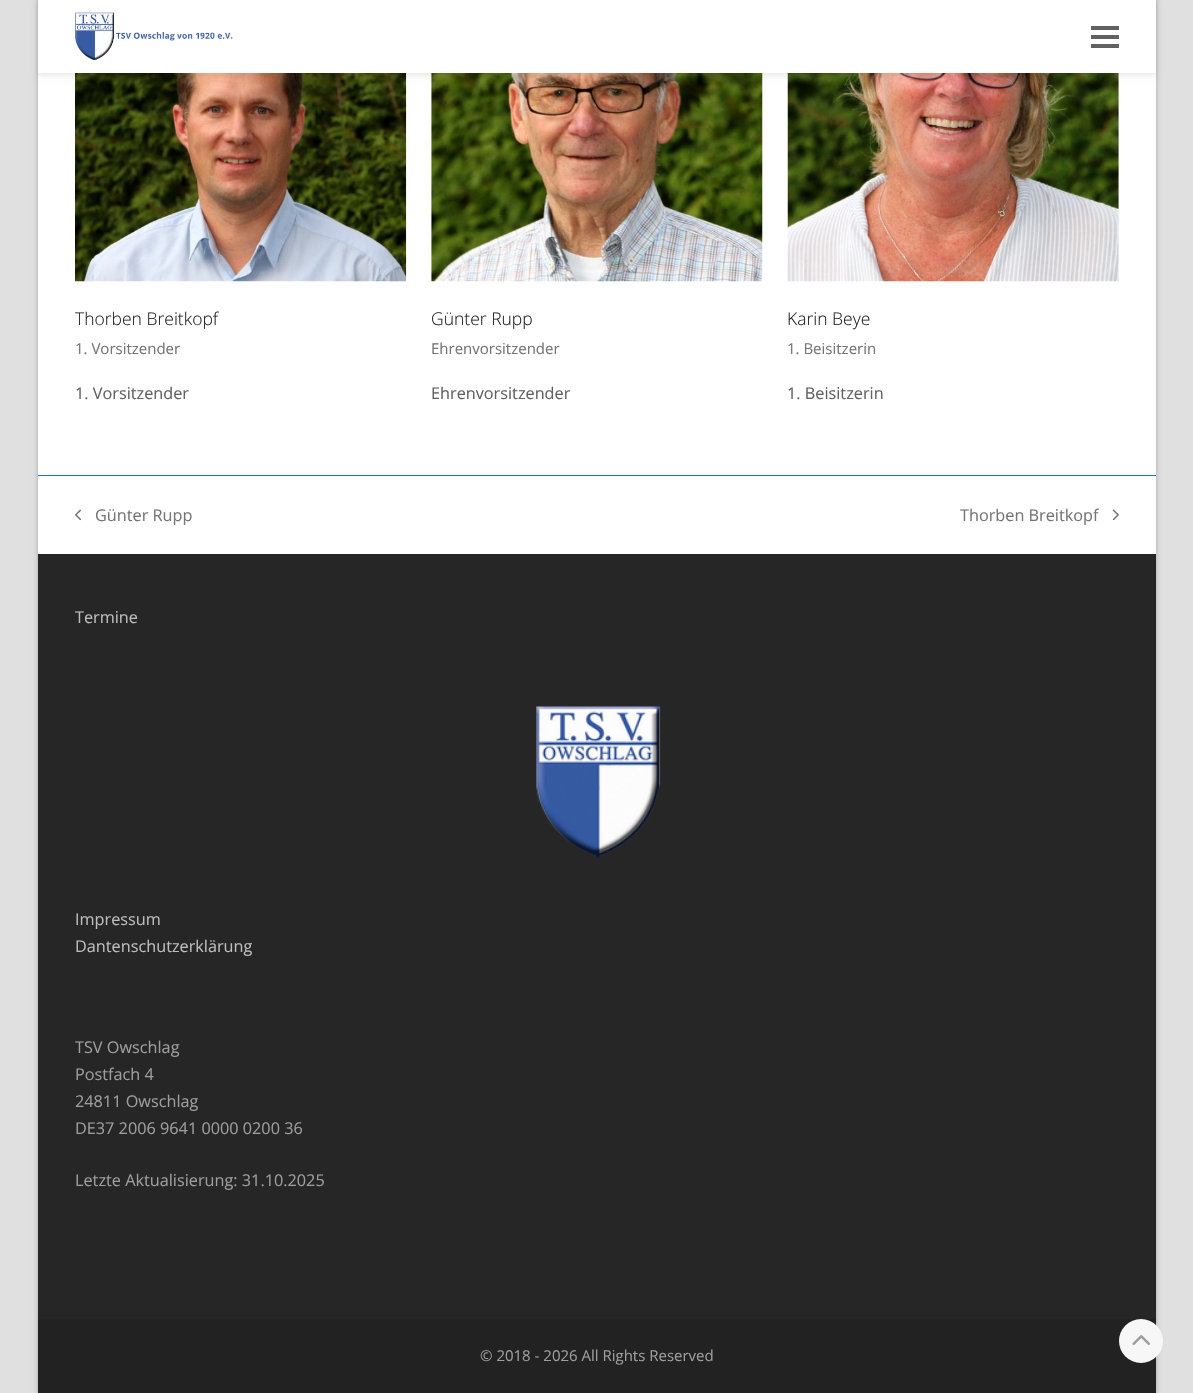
#include "include/core/SkBlurTypes.h"
#include "include/core/SkCanvas.h"
#include "include/core/SkData.h"
#include "include/core/SkFont.h"
#include "include/core/SkFontMgr.h"
#include "include/core/SkImage.h"
#include "include/core/SkMaskFilter.h"
#include "include/core/SkPaint.h"
#include "include/core/SkPathBuilder.h"
#include "include/core/SkTextBlob.h"
#include "include/effects/SkDashPathEffect.h"
#include "include/effects/SkGradientShader.h"
#include "include/utils/SkParsePath.h"

extern sk_sp<SkFontMgr> fontMgr;

static SkFont font(const char* family, int weight, float size, bool italic = false) {
    SkFontStyle style(weight, SkFontStyle::kNormal_Width,
        italic ? SkFontStyle::kItalic_Slant : SkFontStyle::kUpright_Slant);
    SkFont result(fontMgr->matchFamilyStyle(family, style), size);
    result.setSubpixel(true);
    return result;
}

static void drawLabel(SkCanvas* canvas, const char* s, float x, float y, const SkFont& font, SkColor color) {
    SkPaint ink(SkColor4f::FromColor(color));
    ink.setAntiAlias(true);
    canvas->drawString(s, x, y, font, ink);
}

static void fillRect(SkCanvas* canvas, float x, float y, float w, float h, SkColor color) {
    SkPaint ink(SkColor4f::FromColor(color));
    ink.setAntiAlias(true);
    canvas->drawRect(SkRect::MakeXYWH(x, y, w, h), ink);
}

static void drawPhoto(SkCanvas* canvas, const char* path, float x, float y, float w, float h) {
    auto image = SkImages::DeferredFromEncodedData(SkData::MakeFromFileName(path));
    canvas->drawImageRect(image, SkRect::MakeXYWH(x, y, w, h), SkSamplingOptions());
}

void draw(SkCanvas* canvas) {
    SkPaint paint;
    paint.setAntiAlias(true);
    canvas->clear(0xFFE0E0E0);
    paint.setColor(0x40000000);
    paint.setMaskFilter(SkMaskFilter::MakeBlur(kNormal_SkBlurStyle, 2.5f));
    canvas->drawRect(SkRect::MakeXYWH(38, -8, 1118, 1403), paint);
    paint.setMaskFilter(nullptr);
    fillRect(canvas, 38, 73, 1118, 481, 0xFFFFFFFF);
    drawPhoto(canvas, "assets/img2.png", 75, 73, 332, 209);
    drawPhoto(canvas, "assets/img3.png", 431, 73, 332, 209);
    drawPhoto(canvas, "assets/img4.png", 787, 73, 332, 209);
    paint.setColor(0x1A000000);
    paint.setMaskFilter(SkMaskFilter::MakeBlur(kNormal_SkBlurStyle, 3));
    canvas->drawRect(SkRect::MakeXYWH(38, 3, 1118, 72), paint);
    paint.setMaskFilter(nullptr);
    fillRect(canvas, 38, 0, 1118, 73, 0xFFFFFFFF);
    drawPhoto(canvas, "assets/img1.png", 75, 12, 158, 48);
    fillRect(canvas, 1091, 35, 28, 4, 0xFF616161);
    fillRect(canvas, 1091, 26, 28, 4, 0xFF616161);
    fillRect(canvas, 1091, 44, 28, 4, 0xFF616161);
    SkFont font1 = font("Open Sans", 300, 17.5f);
    drawLabel(canvas, "Thorben Breitkopf", 75, 325, font1, 0xFF222222);
    SkFont font2 = font("Open Sans", 400, 15);
    drawLabel(canvas, "1. Vorsitzender", 75, 354, font2, 0xFF757575);
    SkFont font3 = font("Open Sans", 400, 16.25f);
    drawLabel(canvas, "1. Vorsitzender", 75, 399, font3, 0xFF616161);
    drawLabel(canvas, "Günter Rupp", 431, 325, font1, 0xFF222222);
    drawLabel(canvas, "Ehrenvorsitzender", 431, 354, font2, 0xFF757575);
    drawLabel(canvas, "Ehrenvorsitzender", 431, 399, font3, 0xFF616161);
    drawLabel(canvas, "Karin Beye", 787, 325, font1, 0xFF222222);
    drawLabel(canvas, "1. Beisitzerin", 787, 354, font2, 0xFF757575);
    drawLabel(canvas, "1. Beisitzerin", 787, 399, font3, 0xFF616161);
    fillRect(canvas, 38, 475, 1118, 1, 0xFF1E73BE);
    drawPhoto(canvas, "assets/img5.png", 75, 509, 6, 12);
    drawLabel(canvas, "Günter Rupp", 95, 521, font3, 0xFF757575);
    drawLabel(canvas, "Thorben Breitkopf", 960, 521, font3, 0xFF757575);
    drawPhoto(canvas, "assets/img6.png", 1112, 509, 7, 12);
    fillRect(canvas, 38, 554, 1118, 765, 0xFF262626);
    drawLabel(canvas, "Termine", 75, 623, font3, 0xFFBDBDBD);
    drawPhoto(canvas, "assets/img7.png", 536, 706, 125, 151);
    drawLabel(canvas, "Impressum", 75, 925, font3, 0xFFBDBDBD);
    drawLabel(canvas, "Dantenschutzerklärung", 75, 952, font3, 0xFFBDBDBD);
    drawLabel(canvas, "TSV Owschlag", 75, 1053, font3, 0xFF9E9E9E);
    drawLabel(canvas, "Postfach 4", 75, 1080, font3, 0xFF9E9E9E);
    drawLabel(canvas, "24811 Owschlag", 75, 1107, font3, 0xFF9E9E9E);
    drawLabel(canvas, "DE37 2006 9641 0000 0200 36", 75, 1134, font3, 0xFF9E9E9E);
    drawLabel(canvas, "Letzte Aktualisierung: 31.10.2025", 75, 1186, font3, 0xFF9E9E9E);
    fillRect(canvas, 38, 1319, 1118, 74, 0xFF222222);
    drawLabel(canvas, "© 2018 - 2026 All Rights Reserved", 480, 1361, font2, 0xFF9E9E9E);
    paint.setColor(0xFFF7F7F7);
    canvas->drawCircle(1141, 1341, 22, paint);
    drawPhoto(canvas, "assets/img8.png", 1132, 1335, 18, 10);
}
